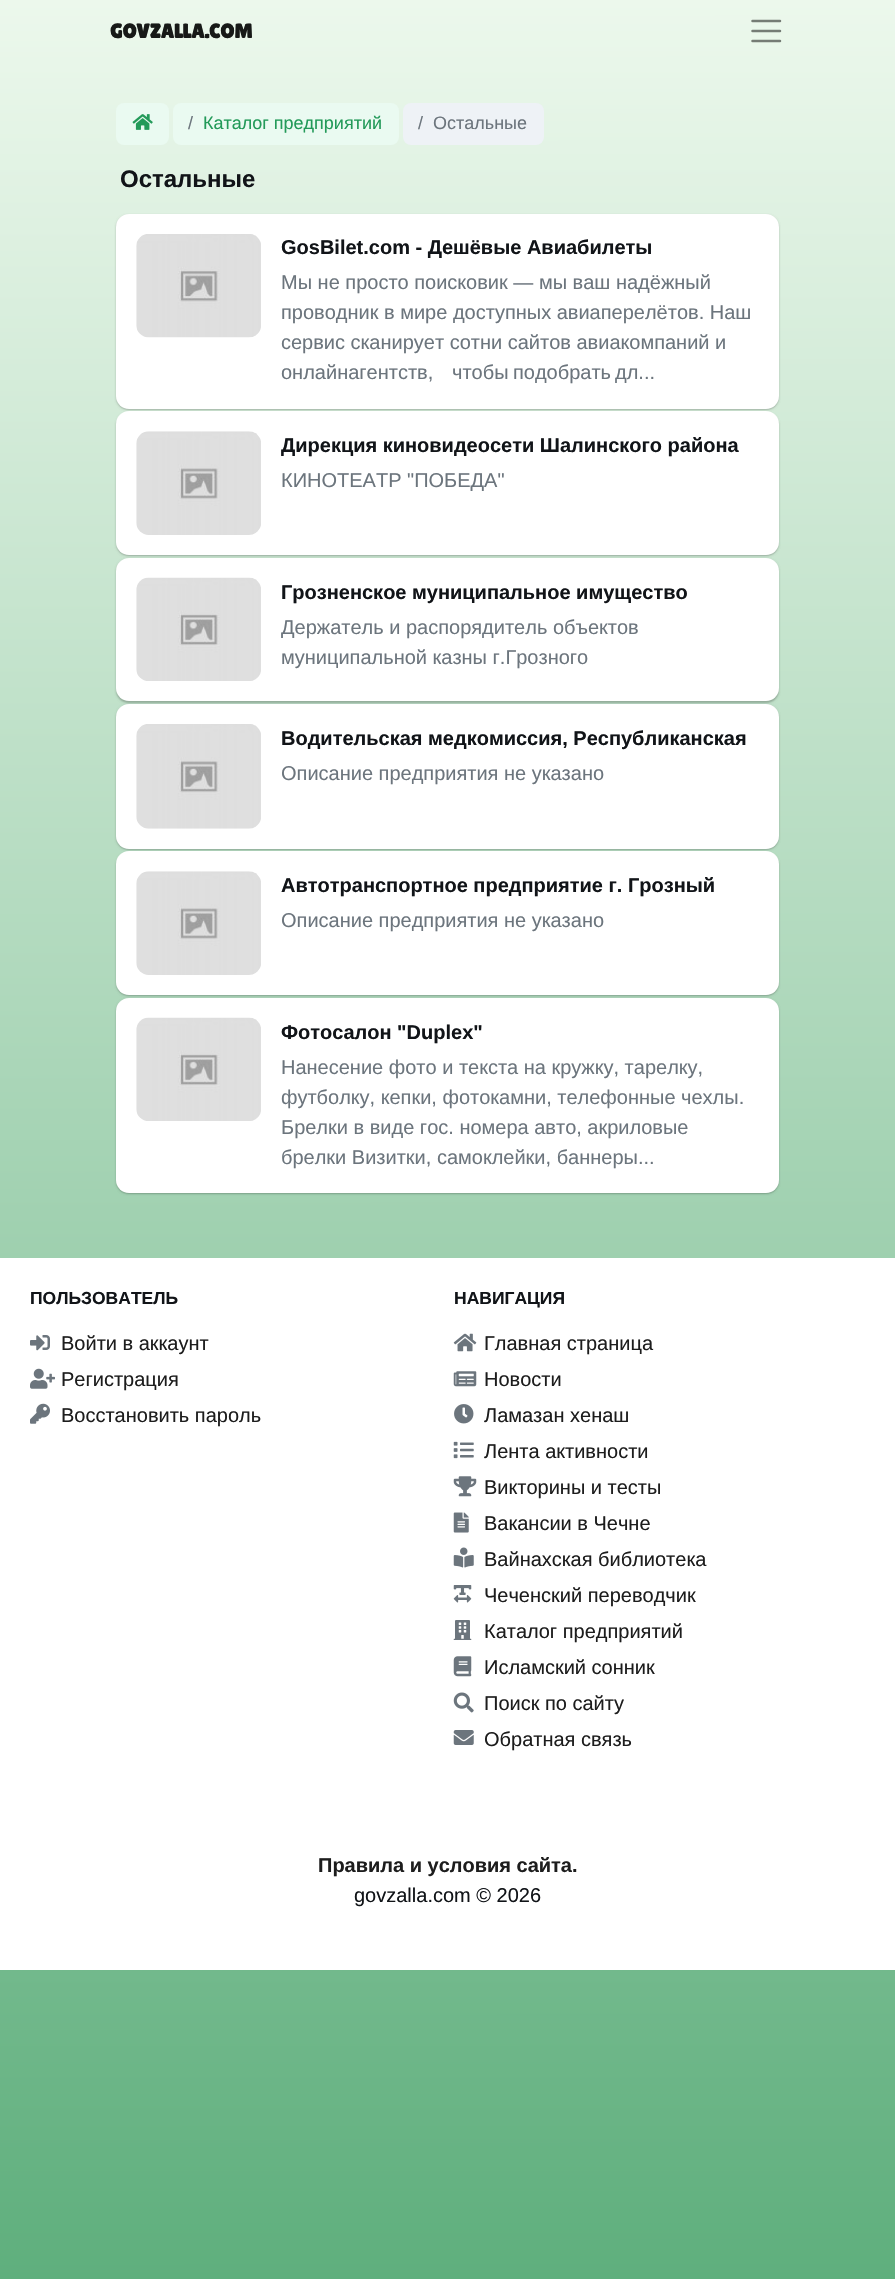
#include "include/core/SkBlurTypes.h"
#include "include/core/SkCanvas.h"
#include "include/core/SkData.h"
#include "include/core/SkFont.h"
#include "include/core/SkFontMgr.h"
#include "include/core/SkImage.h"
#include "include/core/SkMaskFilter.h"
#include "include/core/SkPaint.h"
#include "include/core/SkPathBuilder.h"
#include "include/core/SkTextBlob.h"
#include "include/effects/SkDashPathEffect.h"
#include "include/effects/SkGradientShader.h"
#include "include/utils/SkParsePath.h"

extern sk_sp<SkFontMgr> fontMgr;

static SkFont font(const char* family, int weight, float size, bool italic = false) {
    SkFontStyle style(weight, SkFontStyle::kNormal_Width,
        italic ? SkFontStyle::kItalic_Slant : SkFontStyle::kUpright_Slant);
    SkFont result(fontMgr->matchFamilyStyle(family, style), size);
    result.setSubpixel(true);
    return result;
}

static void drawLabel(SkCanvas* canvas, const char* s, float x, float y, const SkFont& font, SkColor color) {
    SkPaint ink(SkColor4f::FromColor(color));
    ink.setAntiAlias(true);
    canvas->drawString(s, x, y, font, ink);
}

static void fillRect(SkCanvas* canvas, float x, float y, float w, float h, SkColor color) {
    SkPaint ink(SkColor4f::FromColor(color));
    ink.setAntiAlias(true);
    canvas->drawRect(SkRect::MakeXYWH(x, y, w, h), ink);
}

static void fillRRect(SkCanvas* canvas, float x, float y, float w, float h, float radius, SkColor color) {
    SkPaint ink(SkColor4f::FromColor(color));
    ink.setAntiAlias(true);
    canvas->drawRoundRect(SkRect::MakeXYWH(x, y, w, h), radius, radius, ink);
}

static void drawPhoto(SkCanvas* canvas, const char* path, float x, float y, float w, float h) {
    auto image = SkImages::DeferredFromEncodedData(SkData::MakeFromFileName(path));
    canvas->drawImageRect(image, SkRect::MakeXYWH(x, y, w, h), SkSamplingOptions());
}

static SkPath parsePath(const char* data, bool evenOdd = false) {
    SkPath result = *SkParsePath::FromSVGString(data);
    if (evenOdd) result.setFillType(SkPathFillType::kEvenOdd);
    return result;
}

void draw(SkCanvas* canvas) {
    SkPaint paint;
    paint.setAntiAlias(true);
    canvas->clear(0xFFFFFFFF);
    {
        const SkColor colors[] = {0xFFECF8EC, 0xFF5FAF7D};
        const float stops[] = {0, 1};
        const SkPoint ends[] = {{447, 0}, {448, 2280}};
        paint.setShader(SkGradientShader::MakeLinear(ends, colors, stops, 2, SkTileMode::kClamp));
        paint.setAlpha(255);
    }
    canvas->drawRect(SkRect::MakeXYWH(0, 0, 895, 2279), paint);
    SkFont font1 = font("Lilita One", 700, 20);
    drawLabel(canvas, "GOVZALLA.COM", 110, 38, font1, 0xFF171917);
    paint.setStroke(true);
    paint.setStrokeWidth(2.5f);
    paint.setStrokeCap(SkPaint::kRound_Cap);
    paint.setShader(nullptr);
    paint.setColor(0xFF757C75);
    canvas->drawPath(parsePath("M752.5 21H780M752.5 31H780M752.5 41H780"), paint);
    fillRRect(canvas, 116, 103, 53, 42, 8, 0xFFEAFAF1);
    drawPhoto(canvas, "assets/img1.png", 132, 114, 21, 16);
    fillRRect(canvas, 173, 103, 226, 42, 8, 0xFFEAFAF1);
    SkFont font2 = font("Liberation Sans", 400, 18);
    drawLabel(canvas, "/", 188, 129, font2, 0xFF6C757D);
    drawLabel(canvas, "Каталог предприятий", 203, 129, font2, 0xFF239A59);
    fillRRect(canvas, 403, 103, 141, 42, 8, 0xFFEEF2F6);
    drawLabel(canvas, "/", 418, 129, font2, 0xFF6C757D);
    drawLabel(canvas, "Остальные", 433, 129, font2, 0xFF6C757D);
    SkFont font3 = font("Liberation Sans", 700, 24);
    drawLabel(canvas, "Остальные", 120, 187, font3, 0xFF111418);
    paint.setStroke(false);
    paint.setColor(0x21000000);
    paint.setMaskFilter(SkMaskFilter::MakeBlur(kNormal_SkBlurStyle, 1));
    canvas->drawRoundRect(SkRect::MakeXYWH(116, 215, 663, 195), 13, 13, paint);
    paint.setMaskFilter(nullptr);
    paint.setColor(0x1F000000);
    paint.setMaskFilter(SkMaskFilter::MakeBlur(kNormal_SkBlurStyle, 1));
    canvas->drawRoundRect(SkRect::MakeXYWH(116, 215, 663, 195), 13, 13, paint);
    paint.setMaskFilter(nullptr);
    fillRRect(canvas, 116, 214, 663, 195, 13, 0xFFFFFFFF);
    drawPhoto(canvas, "assets/img2.png", 136, 234, 125, 104);
    SkFont font4 = font("Liberation Sans", 700, 20);
    drawLabel(canvas, "GosBilet.com - Дешёвые Авиабилеты", 281, 254, font4, 0xFF111418);
    SkFont font5 = font("Liberation Sans", 400, 20);
    drawLabel(canvas, "Мы не просто поисковик — мы ваш надёжный", 281, 289, font5, 0xFF6C757D);
    drawLabel(canvas, "проводник в мире доступных авиаперелётов. Наш", 281, 319, font5, 0xFF6C757D);
    drawLabel(canvas, "сервис сканирует сотни сайтов авиакомпаний и", 281, 349, font5, 0xFF6C757D);
    drawLabel(canvas, "онлайн‑агентств,", 281, 379, font5, 0xFF6C757D);
    drawLabel(canvas, "чтобы", 452, 379, font5, 0xFF6C757D);
    drawLabel(canvas, "подобрать", 513, 379, font5, 0xFF6C757D);
    drawLabel(canvas, "дл...", 615, 379, font5, 0xFF6C757D);
    paint.setColor(0x21000000);
    paint.setMaskFilter(SkMaskFilter::MakeBlur(kNormal_SkBlurStyle, 1));
    canvas->drawRoundRect(SkRect::MakeXYWH(116, 413, 663, 143), 13, 13, paint);
    paint.setMaskFilter(nullptr);
    paint.setColor(0x1F000000);
    paint.setMaskFilter(SkMaskFilter::MakeBlur(kNormal_SkBlurStyle, 1));
    canvas->drawRoundRect(SkRect::MakeXYWH(116, 413, 663, 143), 13, 13, paint);
    paint.setMaskFilter(nullptr);
    fillRRect(canvas, 116, 411, 663, 144, 13, 0xFFFFFFFF);
    drawPhoto(canvas, "assets/img3.png", 136, 431, 125, 104);
    drawLabel(canvas, "Дирекция киновидеосети Шалинского района", 281, 452, font4, 0xFF111418);
    drawLabel(canvas, "КИНОТЕАТР \"ПОБЕДА\"", 281, 487, font5, 0xFF6C757D);
    paint.setColor(0x21000000);
    paint.setMaskFilter(SkMaskFilter::MakeBlur(kNormal_SkBlurStyle, 1));
    canvas->drawRoundRect(SkRect::MakeXYWH(116, 559, 663, 144), 13, 13, paint);
    paint.setMaskFilter(nullptr);
    paint.setColor(0x1F000000);
    paint.setMaskFilter(SkMaskFilter::MakeBlur(kNormal_SkBlurStyle, 1));
    canvas->drawRoundRect(SkRect::MakeXYWH(116, 559, 663, 144), 13, 13, paint);
    paint.setMaskFilter(nullptr);
    fillRRect(canvas, 116, 558, 663, 143, 13, 0xFFFFFFFF);
    drawPhoto(canvas, "assets/img4.png", 136, 577, 125, 104);
    drawLabel(canvas, "Грозненское муниципальное имущество", 281, 599, font4, 0xFF111418);
    drawLabel(canvas, "Держатель и распорядитель объектов", 281, 634, font5, 0xFF6C757D);
    drawLabel(canvas, "муниципальной казны г.Грозного", 281, 664, font5, 0xFF6C757D);
    paint.setColor(0x21000000);
    paint.setMaskFilter(SkMaskFilter::MakeBlur(kNormal_SkBlurStyle, 1));
    canvas->drawRoundRect(SkRect::MakeXYWH(116, 705, 663, 145), 13, 13, paint);
    paint.setMaskFilter(nullptr);
    paint.setColor(0x1F000000);
    paint.setMaskFilter(SkMaskFilter::MakeBlur(kNormal_SkBlurStyle, 1));
    canvas->drawRoundRect(SkRect::MakeXYWH(116, 705, 663, 145), 13, 13, paint);
    paint.setMaskFilter(nullptr);
    fillRRect(canvas, 116, 704, 663, 145, 13, 0xFFFFFFFF);
    drawPhoto(canvas, "assets/img5.png", 136, 724, 125, 105);
    drawLabel(canvas, "Водительская медкомиссия, Республиканская", 281, 745, font4, 0xFF111418);
    drawLabel(canvas, "Описание предприятия не указано", 281, 780, font5, 0xFF6C757D);
    paint.setColor(0x21000000);
    paint.setMaskFilter(SkMaskFilter::MakeBlur(kNormal_SkBlurStyle, 1));
    canvas->drawRoundRect(SkRect::MakeXYWH(116, 853, 663, 143), 13, 13, paint);
    paint.setMaskFilter(nullptr);
    paint.setColor(0x1F000000);
    paint.setMaskFilter(SkMaskFilter::MakeBlur(kNormal_SkBlurStyle, 1));
    canvas->drawRoundRect(SkRect::MakeXYWH(116, 853, 663, 143), 13, 13, paint);
    paint.setMaskFilter(nullptr);
    fillRRect(canvas, 116, 851, 663, 144, 13, 0xFFFFFFFF);
    drawPhoto(canvas, "assets/img6.png", 136, 871, 125, 104);
    drawLabel(canvas, "Автотранспортное предприятие г. Грозный", 281, 892, font4, 0xFF111418);
    drawLabel(canvas, "Описание предприятия не указано", 281, 927, font5, 0xFF6C757D);
    paint.setColor(0x21000000);
    paint.setMaskFilter(SkMaskFilter::MakeBlur(kNormal_SkBlurStyle, 1));
    canvas->drawRoundRect(SkRect::MakeXYWH(116, 999, 663, 195), 13, 13, paint);
    paint.setMaskFilter(nullptr);
    paint.setColor(0x1F000000);
    paint.setMaskFilter(SkMaskFilter::MakeBlur(kNormal_SkBlurStyle, 1));
    canvas->drawRoundRect(SkRect::MakeXYWH(116, 999, 663, 195), 13, 13, paint);
    paint.setMaskFilter(nullptr);
    fillRRect(canvas, 116, 998, 663, 195, 13, 0xFFFFFFFF);
    drawPhoto(canvas, "assets/img4.png", 136, 1017, 125, 104);
    drawLabel(canvas, "Фотосалон \"Duplex\"", 281, 1039, font4, 0xFF111418);
    drawLabel(canvas, "Нанесение фото и текста на кружку, тарелку,", 281, 1074, font5, 0xFF6C757D);
    drawLabel(canvas, "футболку, кепки, фотокамни, телефонные чехлы.", 281, 1104, font5, 0xFF6C757D);
    drawLabel(canvas, "Брелки в виде гос. номера авто, акриловые", 281, 1134, font5, 0xFF6C757D);
    drawLabel(canvas, "брелки Визитки, самоклейки, баннеры...", 281, 1164, font5, 0xFF6C757D);
    fillRect(canvas, 0, 1258, 895, 712, 0xFFFFFFFF);
    SkFont font6 = font("Liberation Sans", 700, 17.5f);
    drawLabel(canvas, "ПОЛЬЗОВАТЕЛЬ", 30, 1304, font6, 0xFF111418);
    drawPhoto(canvas, "assets/img7.png", 30, 1335, 20, 16);
    drawLabel(canvas, "Войти в аккаунт", 61, 1350, font5, 0xFF1D1D1D);
    drawPhoto(canvas, "assets/img8.png", 30, 1368, 25, 21);
    drawLabel(canvas, "Регистрация", 61, 1386, font5, 0xFF1D1D1D);
    drawPhoto(canvas, "assets/img9.png", 30, 1403, 20, 21);
    drawLabel(canvas, "Восстановить пароль", 61, 1422, font5, 0xFF1D1D1D);
    drawLabel(canvas, "НАВИГАЦИЯ", 454, 1304, font6, 0xFF111418);
    drawPhoto(canvas, "assets/img10.png", 453, 1333, 24, 19);
    drawLabel(canvas, "Главная страница", 484, 1350, font5, 0xFF1D1D1D);
    drawPhoto(canvas, "assets/img11.png", 453, 1371, 24, 16);
    drawLabel(canvas, "Новости", 484, 1386, font5, 0xFF1D1D1D);
    drawPhoto(canvas, "assets/img12.png", 454, 1404, 20, 20);
    drawLabel(canvas, "Ламазан хенаш", 484, 1422, font5, 0xFF1D1D1D);
    drawPhoto(canvas, "assets/img13.png", 453, 1441, 21, 18);
    drawLabel(canvas, "Лента активности", 484, 1458, font5, 0xFF1D1D1D);
    drawPhoto(canvas, "assets/img14.png", 453, 1476, 24, 21);
    drawLabel(canvas, "Викторины и тесты", 484, 1494, font5, 0xFF1D1D1D);
    drawPhoto(canvas, "assets/img15.png", 453, 1512, 16, 21);
    drawLabel(canvas, "Вакансии в Чечне", 484, 1530, font5, 0xFF1D1D1D);
    drawPhoto(canvas, "assets/img16.png", 453, 1547, 21, 21);
    drawLabel(canvas, "Вайнахская библиотека", 484, 1566, font5, 0xFF1D1D1D);
    drawPhoto(canvas, "assets/img17.png", 453, 1585, 19, 18);
    drawLabel(canvas, "Чеченский переводчик", 484, 1602, font5, 0xFF1D1D1D);
    drawPhoto(canvas, "assets/img18.png", 453, 1620, 19, 20);
    drawLabel(canvas, "Каталог предприятий", 484, 1638, font5, 0xFF1D1D1D);
    drawPhoto(canvas, "assets/img19.png", 453, 1656, 19, 21);
    drawLabel(canvas, "Исламский сонник", 484, 1674, font5, 0xFF1D1D1D);
    drawPhoto(canvas, "assets/img20.png", 453, 1692, 21, 21);
    drawLabel(canvas, "Поиск по сайту", 484, 1710, font5, 0xFF1D1D1D);
    drawPhoto(canvas, "assets/img21.png", 453, 1730, 21, 15);
    drawLabel(canvas, "Обратная связь", 484, 1746, font5, 0xFF1D1D1D);
    drawLabel(canvas, "Правила и условия сайта.", 318, 1872, font4, 0xFF1D1D1D);
    drawLabel(canvas, "govzalla.com © 2026", 354, 1902, font5, 0xFF111418);
}
